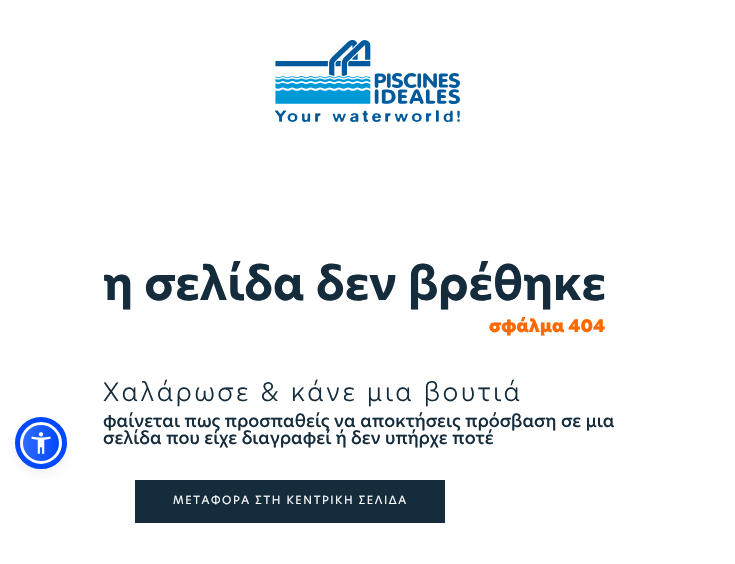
#include "include/core/SkBlurTypes.h"
#include "include/core/SkCanvas.h"
#include "include/core/SkData.h"
#include "include/core/SkFont.h"
#include "include/core/SkFontMgr.h"
#include "include/core/SkImage.h"
#include "include/core/SkMaskFilter.h"
#include "include/core/SkPaint.h"
#include "include/core/SkPathBuilder.h"
#include "include/core/SkTextBlob.h"
#include "include/effects/SkDashPathEffect.h"
#include "include/effects/SkGradientShader.h"
#include "include/utils/SkParsePath.h"

extern sk_sp<SkFontMgr> fontMgr;

static SkFont font(const char* family, int weight, float size, bool italic = false) {
    SkFontStyle style(weight, SkFontStyle::kNormal_Width,
        italic ? SkFontStyle::kItalic_Slant : SkFontStyle::kUpright_Slant);
    SkFont result(fontMgr->matchFamilyStyle(family, style), size);
    result.setSubpixel(true);
    return result;
}

static void drawLabel(SkCanvas* canvas, const char* s, float x, float y, const SkFont& font, SkColor color) {
    SkPaint ink(SkColor4f::FromColor(color));
    ink.setAntiAlias(true);
    canvas->drawString(s, x, y, font, ink);
}

static void drawTracked(SkCanvas* canvas, const char* s, float x, float y, const SkFont& font, const SkPaint& ink, float letter, float word) {
    std::vector<SkGlyphID> glyphs(font.countText(s, strlen(s), SkTextEncoding::kUTF8));
    std::vector<float> xs(glyphs.size());
    font.textToGlyphs(s, strlen(s), SkTextEncoding::kUTF8, glyphs);
    font.getXPos(glyphs, xs, x);
    float extra = 0;
    for (size_t i = 0; i < glyphs.size(); i++) {
        xs[i] += extra;
        extra += letter + word * (glyphs[i] == font.unicharToGlyph(' '));
    }
    canvas->drawTextBlob(SkTextBlob::MakeFromPosHGlyphs(glyphs, xs, y, font), 0, 0, ink);
}

static void fillRect(SkCanvas* canvas, float x, float y, float w, float h, SkColor color) {
    SkPaint ink(SkColor4f::FromColor(color));
    ink.setAntiAlias(true);
    canvas->drawRect(SkRect::MakeXYWH(x, y, w, h), ink);
}

static void drawPhoto(SkCanvas* canvas, const char* path, float x, float y, float w, float h) {
    auto image = SkImages::DeferredFromEncodedData(SkData::MakeFromFileName(path));
    canvas->drawImageRect(image, SkRect::MakeXYWH(x, y, w, h), SkSamplingOptions());
}

static SkPath parsePath(const char* data, bool evenOdd = false) {
    SkPath result = *SkParsePath::FromSVGString(data);
    if (evenOdd) result.setFillType(SkPathFillType::kEvenOdd);
    return result;
}

void draw(SkCanvas* canvas) {
    SkPaint paint;
    paint.setAntiAlias(true);
    canvas->clear(0xFFFFFFFF);
    paint.setColor(0x335D6494);
    paint.setMaskFilter(SkMaskFilter::MakeBlur(kNormal_SkBlurStyle, 2));
    canvas->drawRoundRect(SkRect::MakeXYWH(20, 424, 42, 42), 21, 21, paint);
    paint.setMaskFilter(nullptr);
    paint.setColor(0x26252C61);
    paint.setMaskFilter(SkMaskFilter::MakeBlur(kNormal_SkBlurStyle, 7.5f));
    canvas->drawRoundRect(SkRect::MakeXYWH(20, 427, 42, 42), 21, 21, paint);
    paint.setMaskFilter(nullptr);
    canvas->save();
    canvas->clipPath(parsePath("M41 422C52.5 422 62 431.5 62 443C62 454.5 52.5 464 41 464C29.5 464 20 454.5 20 443C20 431.5 29.5 422 41 422Z"), true);
    {
        const SkColor colors[] = {0xFF326CFF, 0xFF0048FF};
        const float stops[] = {0, 1};
        const SkPoint ends[] = {{21, 441}, {61, 445}};
        paint.setShader(SkGradientShader::MakeLinear(ends, colors, stops, 2, SkTileMode::kClamp));
        paint.setAlpha(255);
    }
    canvas->drawRect(SkRect::MakeXYWH(23, 425, 36, 36), paint);
    canvas->restore();
    paint.setStroke(true);
    paint.setStrokeWidth(3);
    paint.setShader(nullptr);
    paint.setColor(0xFFFFFFFF);
    canvas->drawCircle(41, 443, 19.5f, paint);
    paint.setStrokeWidth(5);
    paint.setColor(0xFF0048FF);
    canvas->drawCircle(41, 443, 23.5f, paint);
    drawPhoto(canvas, "assets/img1.png", 31, 432, 20, 22);
    drawPhoto(canvas, "assets/img2.png", 275, 40, 185, 82);
    SkFont font1 = font("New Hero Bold", 700, 45);
    drawLabel(canvas, "η σελίδα δεν βρέθηκε", 103, 300, font1, 0xFF152C3D);
    SkFont font2 = font("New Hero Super", 900, 17);
    drawLabel(canvas, "σφάλμα 404", 489, 332, font2, 0xFFFF6A00);
    SkFont font3 = font("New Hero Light", 300, 25);
    paint.setStroke(false);
    paint.setColor(0xFF152C3D);
    drawTracked(canvas, "Χαλάρωσε & κάνε μια βουτιά", 103, 401, font3, paint, 2.4f, 0);
    SkFont font4 = font("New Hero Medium", 500, 17);
    drawLabel(canvas, "φαίνεται πως προσπαθείς να αποκτήσεις πρόσβαση σε μια", 103, 427, font4, 0xFF152C3D);
    drawLabel(canvas, "σελίδα που είχε διαγραφεί ή δεν υπήρχε ποτέ", 103, 444, font4, 0xFF152C3D);
    fillRect(canvas, 135, 480, 310, 43, 0xFF152C3D);
    SkFont font5 = font("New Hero", 400, 11);
    paint.setColor(0xFFFFFFFF);
    drawTracked(canvas, "ΜΕΤΑΦΟΡΑ ΣΤΗ ΚΕΝΤΡΙΚΗ ΣΕΛΙΔΑ", 173, 504, font5, paint, 1.6f, 0);
}
